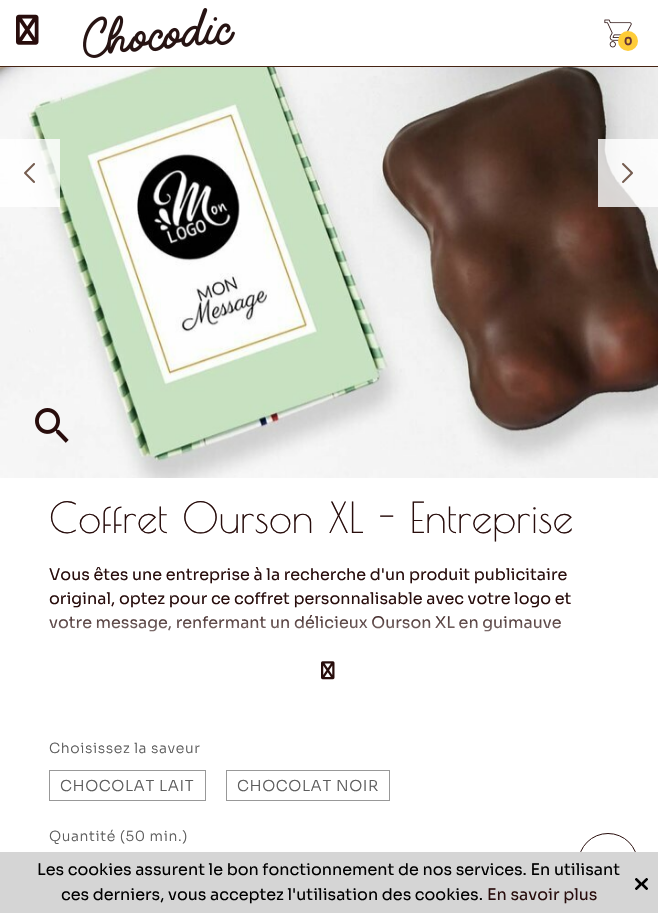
#include "include/core/SkBlurTypes.h"
#include "include/core/SkCanvas.h"
#include "include/core/SkData.h"
#include "include/core/SkFont.h"
#include "include/core/SkFontMgr.h"
#include "include/core/SkImage.h"
#include "include/core/SkMaskFilter.h"
#include "include/core/SkPaint.h"
#include "include/core/SkPathBuilder.h"
#include "include/core/SkTextBlob.h"
#include "include/effects/SkDashPathEffect.h"
#include "include/effects/SkGradientShader.h"
#include "include/utils/SkParsePath.h"

extern sk_sp<SkFontMgr> fontMgr;

static SkFont font(const char* family, int weight, float size, bool italic = false) {
    SkFontStyle style(weight, SkFontStyle::kNormal_Width,
        italic ? SkFontStyle::kItalic_Slant : SkFontStyle::kUpright_Slant);
    SkFont result(fontMgr->matchFamilyStyle(family, style), size);
    result.setSubpixel(true);
    return result;
}

static void drawLabel(SkCanvas* canvas, const char* s, float x, float y, const SkFont& font, SkColor color) {
    SkPaint ink(SkColor4f::FromColor(color));
    ink.setAntiAlias(true);
    canvas->drawString(s, x, y, font, ink);
}

static void drawTracked(SkCanvas* canvas, const char* s, float x, float y, const SkFont& font, const SkPaint& ink, float letter, float word) {
    std::vector<SkGlyphID> glyphs(font.countText(s, strlen(s), SkTextEncoding::kUTF8));
    std::vector<float> xs(glyphs.size());
    font.textToGlyphs(s, strlen(s), SkTextEncoding::kUTF8, glyphs);
    font.getXPos(glyphs, xs, x);
    float extra = 0;
    for (size_t i = 0; i < glyphs.size(); i++) {
        xs[i] += extra;
        extra += letter + word * (glyphs[i] == font.unicharToGlyph(' '));
    }
    canvas->drawTextBlob(SkTextBlob::MakeFromPosHGlyphs(glyphs, xs, y, font), 0, 0, ink);
}

static void fillRect(SkCanvas* canvas, float x, float y, float w, float h, SkColor color) {
    SkPaint ink(SkColor4f::FromColor(color));
    ink.setAntiAlias(true);
    canvas->drawRect(SkRect::MakeXYWH(x, y, w, h), ink);
}

static void drawPhoto(SkCanvas* canvas, const char* path, float x, float y, float w, float h) {
    auto image = SkImages::DeferredFromEncodedData(SkData::MakeFromFileName(path));
    canvas->drawImageRect(image, SkRect::MakeXYWH(x, y, w, h), SkSamplingOptions());
}

void draw(SkCanvas* canvas) {
    SkPaint paint;
    paint.setAntiAlias(true);
    canvas->clear(0xFFFFFFFF);
    fillRect(canvas, 0, 66, 658, 1, 0xFF452312);
    drawPhoto(canvas, "assets/img1.png", 16, 14, 23, 31);
    drawPhoto(canvas, "assets/img2.png", 83, 8, 152, 50);
    drawPhoto(canvas, "assets/img3.png", 604, 19, 28, 29);
    paint.setColor(0xFFFECC38);
    canvas->drawCircle(628, 41, 10, paint);
    SkFont font1 = font("Sora", 700, 11);
    drawLabel(canvas, "0", 624, 45, font1, 0xFF683535);
    drawPhoto(canvas, "assets/img4.png", 0, 67, 658, 411);
    fillRect(canvas, 0, 139, 60, 68, 0xCCFFFFFF);
    drawPhoto(canvas, "assets/img5.png", 24, 163, 11, 20);
    fillRect(canvas, 598, 139, 60, 68, 0xCCFFFFFF);
    drawPhoto(canvas, "assets/img6.png", 622, 163, 11, 20);
    drawPhoto(canvas, "assets/img7.png", 35, 408, 34, 35);
    SkFont font2 = font("Poiret One", 400, 41.9f);
    drawLabel(canvas, "Coffret Ourson XL - Entreprise", 49, 533, font2, 0xFF280D0C);
    SkFont font3 = font("Sora", 400, 16);
    drawLabel(canvas, "Vous êtes une entreprise à la recherche d'un produit publicitaire", 49, 580, font3, 0xFF280D0C);
    drawLabel(canvas, "original, optez pour ce coffret personnalisable avec votre logo et", 49, 604, font3, 0xFF280D0C);
    drawLabel(canvas, "votre message, renfermant un délicieux Ourson XL en guimauve", 49, 628, font3, 0xFF280D0C);
    {
        const SkColor colors[] = {0x00FFFFFF, 0xE6FFFFFF};
        const float stops[] = {0, 1};
        const SkPoint ends[] = {{329, 609}, {329, 659}};
        paint.setShader(SkGradientShader::MakeLinear(ends, colors, stops, 2, SkTileMode::kClamp));
        paint.setAlpha(255);
    }
    canvas->drawRect(SkRect::MakeXYWH(49, 615, 513, 17), paint);
    drawPhoto(canvas, "assets/img8.png", 321, 661, 14, 19);
    SkFont font4 = font("Sora", 300, 14);
    paint.setShader(nullptr);
    paint.setColor(0xFF5C5C5C);
    drawTracked(canvas, "Choisissez la saveur", 49, 753, font4, paint, 0.6f, 0);
    paint.setStroke(true);
    paint.setStrokeWidth(1);
    paint.setColor(0xFF989898);
    canvas->drawRect(SkRect::MakeXYWH(49.5f, 770.5f, 156, 30), paint);
    SkFont font5 = font("Sora", 300, 15);
    paint.setStroke(false);
    paint.setColor(0xFF5C5C5C);
    drawTracked(canvas, "CHOCOLAT LAIT", 60, 791, font5, paint, 0.6f, 0);
    paint.setStroke(true);
    paint.setColor(0xFF989898);
    canvas->drawRect(SkRect::MakeXYWH(226.5f, 770.5f, 163, 30), paint);
    paint.setStroke(false);
    paint.setColor(0xFF5C5C5C);
    drawTracked(canvas, "CHOCOLAT NOIR", 237, 791, font5, paint, 0.6f, 0);
    drawTracked(canvas, "Quantité (50 min.)", 49, 841, font4, paint, 0.6f, 0);
    paint.setStroke(true);
    paint.setColor(0xFF280D0C);
    canvas->drawCircle(608, 863, 29.5f, paint);
    fillRect(canvas, 0, 852, 658, 61, 0xFFD5D5D5);
    drawLabel(canvas, "Les cookies assurent le bon fonctionnement de nos services. En utilisant", 37, 875, font3, 0xFF000000);
    drawLabel(canvas, "ces derniers, vous acceptez l'utilisation des cookies.", 61, 900, font3, 0xFF000000);
    drawLabel(canvas, "En savoir plus", 487, 900, font3, 0xFF280D0C);
    drawPhoto(canvas, "assets/img9.png", 635, 878, 13, 12);
}
